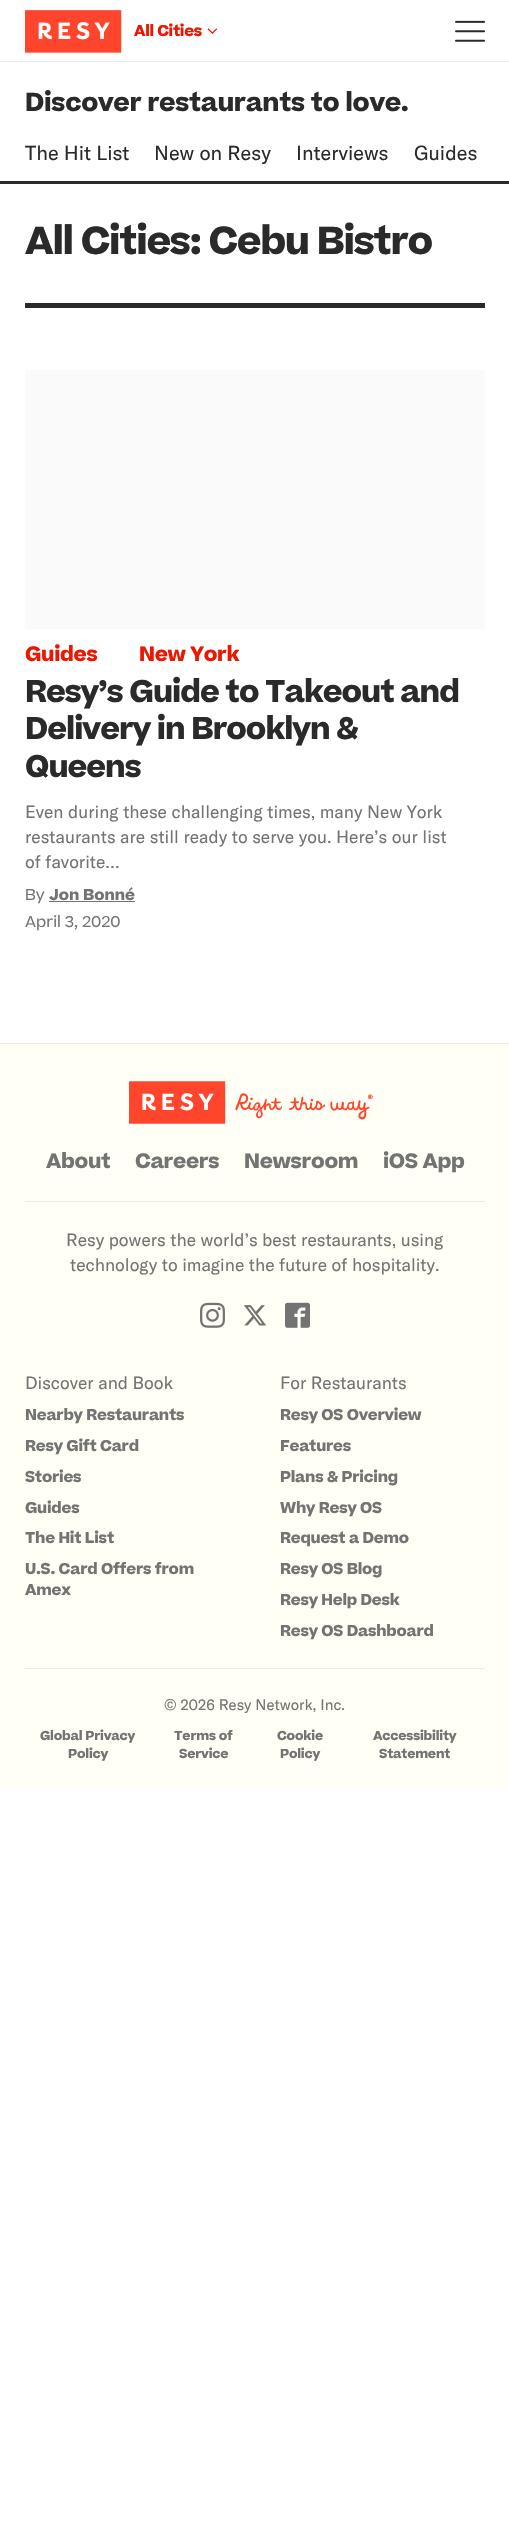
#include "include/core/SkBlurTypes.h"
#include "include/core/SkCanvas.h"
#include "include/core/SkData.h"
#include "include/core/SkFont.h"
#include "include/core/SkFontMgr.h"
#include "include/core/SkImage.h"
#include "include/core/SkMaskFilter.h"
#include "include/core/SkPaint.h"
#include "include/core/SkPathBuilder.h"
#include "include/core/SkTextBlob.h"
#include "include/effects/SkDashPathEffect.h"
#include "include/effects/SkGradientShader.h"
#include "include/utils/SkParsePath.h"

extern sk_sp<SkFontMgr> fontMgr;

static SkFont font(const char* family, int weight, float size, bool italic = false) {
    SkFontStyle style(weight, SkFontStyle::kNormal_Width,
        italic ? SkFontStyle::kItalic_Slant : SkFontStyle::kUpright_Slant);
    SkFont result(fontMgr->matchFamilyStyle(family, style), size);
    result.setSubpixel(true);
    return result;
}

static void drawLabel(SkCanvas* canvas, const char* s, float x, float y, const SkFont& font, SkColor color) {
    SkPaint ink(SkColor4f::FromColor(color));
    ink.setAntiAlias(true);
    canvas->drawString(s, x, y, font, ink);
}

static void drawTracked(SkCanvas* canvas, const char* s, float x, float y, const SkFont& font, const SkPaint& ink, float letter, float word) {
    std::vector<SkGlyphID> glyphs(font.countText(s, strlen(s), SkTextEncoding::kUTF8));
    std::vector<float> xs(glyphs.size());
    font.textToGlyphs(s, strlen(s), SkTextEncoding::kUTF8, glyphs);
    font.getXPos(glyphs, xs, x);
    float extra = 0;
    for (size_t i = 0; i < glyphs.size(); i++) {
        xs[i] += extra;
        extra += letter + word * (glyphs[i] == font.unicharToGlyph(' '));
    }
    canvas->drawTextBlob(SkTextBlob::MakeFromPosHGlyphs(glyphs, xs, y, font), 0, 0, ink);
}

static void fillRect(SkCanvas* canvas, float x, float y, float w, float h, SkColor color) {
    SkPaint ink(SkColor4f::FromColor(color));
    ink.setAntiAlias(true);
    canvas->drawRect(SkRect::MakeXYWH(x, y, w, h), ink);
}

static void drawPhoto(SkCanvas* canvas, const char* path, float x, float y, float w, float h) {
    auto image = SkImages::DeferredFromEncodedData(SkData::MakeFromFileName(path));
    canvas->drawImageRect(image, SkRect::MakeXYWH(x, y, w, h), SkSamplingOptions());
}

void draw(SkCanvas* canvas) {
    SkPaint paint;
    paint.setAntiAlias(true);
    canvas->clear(0xFFFFFFFF);
    fillRect(canvas, 0, 61, 509, 1, 0xFFEAEAEA);
    drawPhoto(canvas, "assets/img1.png", 25, 10, 97, 43);
    SkFont font1 = font("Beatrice", 700, 15);
    paint.setColor(0xFFEB1700);
    drawTracked(canvas, "All Cities", 134, 36, font1, paint, -0.3f, 0);
    drawPhoto(canvas, "assets/img2.png", 207, 28, 11, 6);
    drawPhoto(canvas, "assets/img3.png", 455, 20, 31, 22);
    SkFont font2 = font("Beatrice", 700, 25);
    paint.setColor(0xFF2A2A2A);
    drawTracked(canvas, "Discover restaurants to love.", 25, 111, font2, paint, -0.3f, 0);
    SkFont font3 = font("GT America", 400, 20);
    drawLabel(canvas, "The Hit List", 25, 160, font3, 0xFF2A2A2A);
    drawLabel(canvas, "New on Resy", 154, 160, font3, 0xFF2A2A2A);
    drawLabel(canvas, "Interviews", 296, 160, font3, 0xFF2A2A2A);
    drawLabel(canvas, "Guides", 414, 160, font3, 0xFF2A2A2A);
    fillRect(canvas, 0, 181, 509, 3, 0xFF2A2A2A);
    SkFont font4 = font("Beatrice", 700, 37.5f);
    drawTracked(canvas, "All Cities: Cebu Bistro", 25, 254, font4, paint, -1.25f, 0);
    fillRect(canvas, 25, 303, 460, 5, 0xFF2A2A2A);
    fillRect(canvas, 25, 370, 460, 259, 0xFFFAFAFA);
    SkFont font5 = font("Beatrice", 700, 20);
    paint.setColor(0xFFEB1700);
    drawTracked(canvas, "Guides", 25, 661, font5, paint, -0.3f, 0);
    drawTracked(canvas, "New York", 139, 661, font5, paint, -0.3f, 0);
    SkFont font6 = font("Beatrice", 700, 30);
    paint.setColor(0xFF2A2A2A);
    drawTracked(canvas, "Resy’s Guide to Takeout and", 25, 702, font6, paint, -0.95f, 0);
    drawTracked(canvas, "Delivery in Brooklyn &", 25, 739, font6, paint, -0.95f, 0);
    drawTracked(canvas, "Queens", 25, 777, font6, paint, -0.95f, 0);
    SkFont font7 = font("GT America", 400, 17.5f);
    drawLabel(canvas, "Even during these challenging times, many New York", 25, 818, font7, 0xFF737373);
    drawLabel(canvas, "restaurants are still ready to serve you. Here’s our list", 25, 843, font7, 0xFF737373);
    drawLabel(canvas, "of favorite…", 25, 868, font7, 0xFF737373);
    SkFont font8 = font("Beatrice", 400, 15);
    drawLabel(canvas, "By", 25, 900, font8, 0xFF737373);
    fillRect(canvas, 49, 901, 86, 1, 0xFF737373);
    drawLabel(canvas, "Jon Bonné", 49, 900, font1, 0xFF737373);
    drawLabel(canvas, "April 3, 2020", 25, 927, font8, 0xFF737373);
    fillRect(canvas, 0, 1044, 509, 744, 0xFFFFFFF6);
    fillRect(canvas, 0, 1043, 509, 1, 0xFFEBEBE3);
    drawPhoto(canvas, "assets/img4.png", 129, 1081, 244, 43);
    paint.setColor(0xFF737373);
    drawTracked(canvas, "About", 46, 1168, font5, paint, -0.3f, 0);
    drawTracked(canvas, "Careers", 135, 1168, font5, paint, -0.3f, 0);
    drawTracked(canvas, "Newsroom", 244, 1168, font5, paint, -0.3f, 0);
    drawTracked(canvas, "iOS App", 383, 1168, font5, paint, -0.3f, 0);
    fillRect(canvas, 25, 1201, 460, 1, 0xFFEBEBE3);
    drawLabel(canvas, "Resy powers the world’s best restaurants, using", 66, 1246, font7, 0xFF737373);
    drawLabel(canvas, "technology to imagine the future of hospitality.", 70, 1271, font7, 0xFF737373);
    drawPhoto(canvas, "assets/img5.png", 200, 1302, 25, 26);
    drawPhoto(canvas, "assets/img6.png", 244, 1305, 23, 21);
    drawPhoto(canvas, "assets/img7.png", 285, 1302, 25, 26);
    drawLabel(canvas, "Discover and Book", 25, 1389, font7, 0xFF737373);
    drawTracked(canvas, "Nearby Restaurants", 25, 1420, font1, paint, -0.2f, 0);
    drawTracked(canvas, "Resy Gift Card", 25, 1451, font1, paint, -0.2f, 0);
    drawTracked(canvas, "Stories", 25, 1482, font1, paint, -0.2f, 0);
    drawTracked(canvas, "Guides", 25, 1513, font1, paint, -0.2f, 0);
    drawTracked(canvas, "The Hit List", 25, 1543, font1, paint, -0.2f, 0);
    drawTracked(canvas, "U.S. Card Offers from", 25, 1574, font1, paint, -0.2f, 0);
    drawTracked(canvas, "Amex", 25, 1595, font1, paint, -0.2f, 0);
    drawLabel(canvas, "For Restaurants", 280, 1389, font7, 0xFF737373);
    drawTracked(canvas, "Resy OS Overview", 280, 1420, font1, paint, -0.2f, 0);
    drawTracked(canvas, "Features", 280, 1451, font1, paint, -0.2f, 0);
    drawTracked(canvas, "Plans & Pricing", 280, 1482, font1, paint, -0.2f, 0);
    drawTracked(canvas, "Why Resy OS", 280, 1513, font1, paint, -0.2f, 0);
    drawTracked(canvas, "Request a Demo", 280, 1543, font1, paint, -0.2f, 0);
    drawTracked(canvas, "Resy OS Blog", 280, 1574, font1, paint, -0.2f, 0);
    drawTracked(canvas, "Resy Help Desk", 280, 1605, font1, paint, -0.2f, 0);
    drawTracked(canvas, "Resy OS Dashboard", 280, 1636, font1, paint, -0.2f, 0);
    fillRect(canvas, 25, 1668, 460, 1, 0xFFEBEBE3);
    SkFont font9 = font("GT America", 400, 15);
    drawLabel(canvas, "© 2026 Resy Network, Inc.", 164, 1710, font9, 0xFF737373);
    SkFont font10 = font("Beatrice", 700, 12.5f);
    drawTracked(canvas, "Global Privacy", 40, 1740, font10, paint, -0.2f, 0);
    drawTracked(canvas, "Policy", 68, 1758, font10, paint, -0.2f, 0);
    drawTracked(canvas, "Terms of", 174, 1740, font10, paint, -0.2f, 0);
    drawTracked(canvas, "Service", 179, 1758, font10, paint, -0.2f, 0);
    drawTracked(canvas, "Cookie", 277, 1740, font10, paint, -0.2f, 0);
    drawTracked(canvas, "Policy", 280, 1758, font10, paint, -0.2f, 0);
    drawTracked(canvas, "Accessibility", 373, 1740, font10, paint, -0.2f, 0);
    drawTracked(canvas, "Statement", 379, 1758, font10, paint, -0.2f, 0);
}
